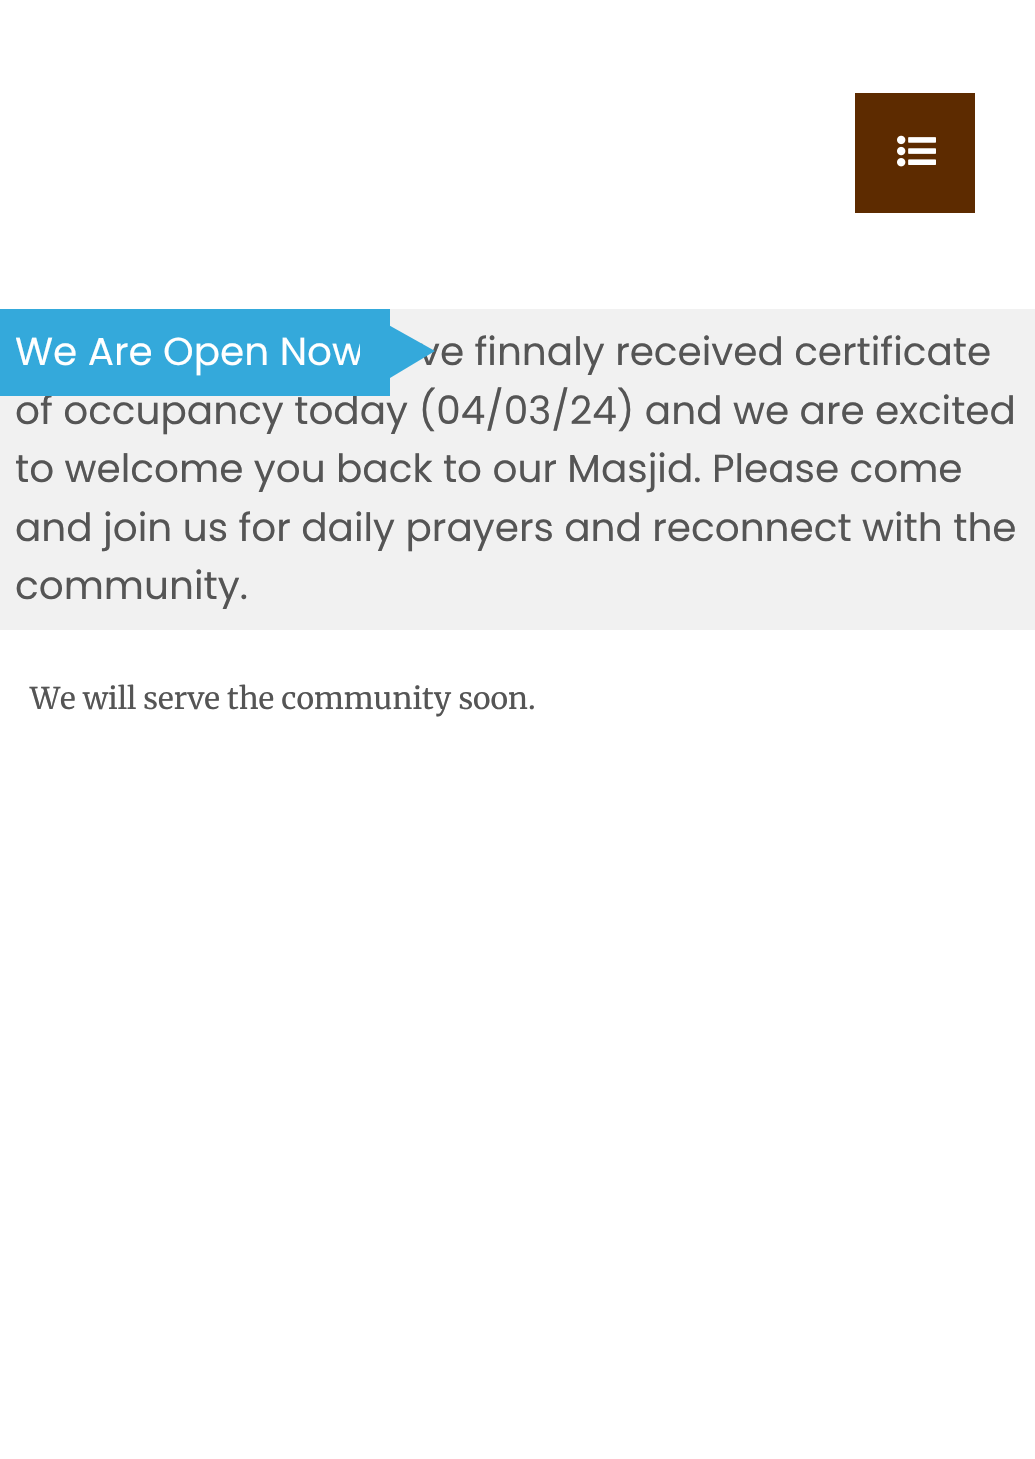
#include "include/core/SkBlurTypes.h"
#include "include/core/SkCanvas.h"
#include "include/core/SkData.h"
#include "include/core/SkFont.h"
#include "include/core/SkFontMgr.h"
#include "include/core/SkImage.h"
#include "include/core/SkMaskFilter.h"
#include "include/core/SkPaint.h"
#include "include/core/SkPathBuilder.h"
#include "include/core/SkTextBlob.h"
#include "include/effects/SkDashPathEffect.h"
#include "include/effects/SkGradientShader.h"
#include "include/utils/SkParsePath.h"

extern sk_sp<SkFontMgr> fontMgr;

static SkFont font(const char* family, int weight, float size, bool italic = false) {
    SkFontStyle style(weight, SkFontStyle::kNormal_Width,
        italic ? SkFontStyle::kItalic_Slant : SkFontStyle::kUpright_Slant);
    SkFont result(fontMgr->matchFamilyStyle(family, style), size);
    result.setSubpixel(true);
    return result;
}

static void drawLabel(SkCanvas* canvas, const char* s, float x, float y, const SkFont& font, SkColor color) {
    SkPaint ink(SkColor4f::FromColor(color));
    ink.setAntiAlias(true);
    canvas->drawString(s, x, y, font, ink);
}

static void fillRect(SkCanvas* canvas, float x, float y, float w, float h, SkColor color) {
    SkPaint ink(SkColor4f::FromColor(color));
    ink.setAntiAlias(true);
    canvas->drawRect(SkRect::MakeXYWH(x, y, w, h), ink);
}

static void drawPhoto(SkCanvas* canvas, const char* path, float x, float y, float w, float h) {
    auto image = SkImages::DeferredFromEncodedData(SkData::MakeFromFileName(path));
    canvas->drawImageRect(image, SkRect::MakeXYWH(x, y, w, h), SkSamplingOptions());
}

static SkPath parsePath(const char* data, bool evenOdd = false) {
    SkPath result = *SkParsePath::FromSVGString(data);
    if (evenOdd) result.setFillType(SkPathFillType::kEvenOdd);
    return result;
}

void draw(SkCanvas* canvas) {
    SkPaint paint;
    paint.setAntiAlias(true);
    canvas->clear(0xFFFFFFFF);
    fillRect(canvas, 855, 93, 120, 120, 0xFF5D2B00);
    drawPhoto(canvas, "assets/img1.png", 897, 135, 39, 32);
    fillRect(canvas, 0, 309, 1035, 321, 0xFFF1F1F1);
    SkFont font1 = font("Poppins", 400, 39);
    drawLabel(canvas, "ve finnaly received certificate", 418, 365, font1, 0xFF555555);
    drawLabel(canvas, "of occupancy today (04/03/24) and we are excited", 15, 424, font1, 0xFF555555);
    drawLabel(canvas, "to welcome you back to our Masjid. Please come", 15, 482, font1, 0xFF555555);
    drawLabel(canvas, "and join us for daily prayers and reconnect with the", 15, 541, font1, 0xFF555555);
    drawLabel(canvas, "community.", 15, 599, font1, 0xFF555555);
    fillRect(canvas, 0, 309, 390, 87, 0xFF34A9DB);
    drawLabel(canvas, "We Are Open Now", 15, 365, font1, 0xFFFFFFFF);
    paint.setColor(0xFF34A9DB);
    canvas->drawPath(parsePath("M360 396V309L435 351Z"), paint);
    SkFont font2 = font("Merriweather", 400, 30);
    drawLabel(canvas, "We will serve the community soon.", 30, 709, font2, 0xFF555555);
}
